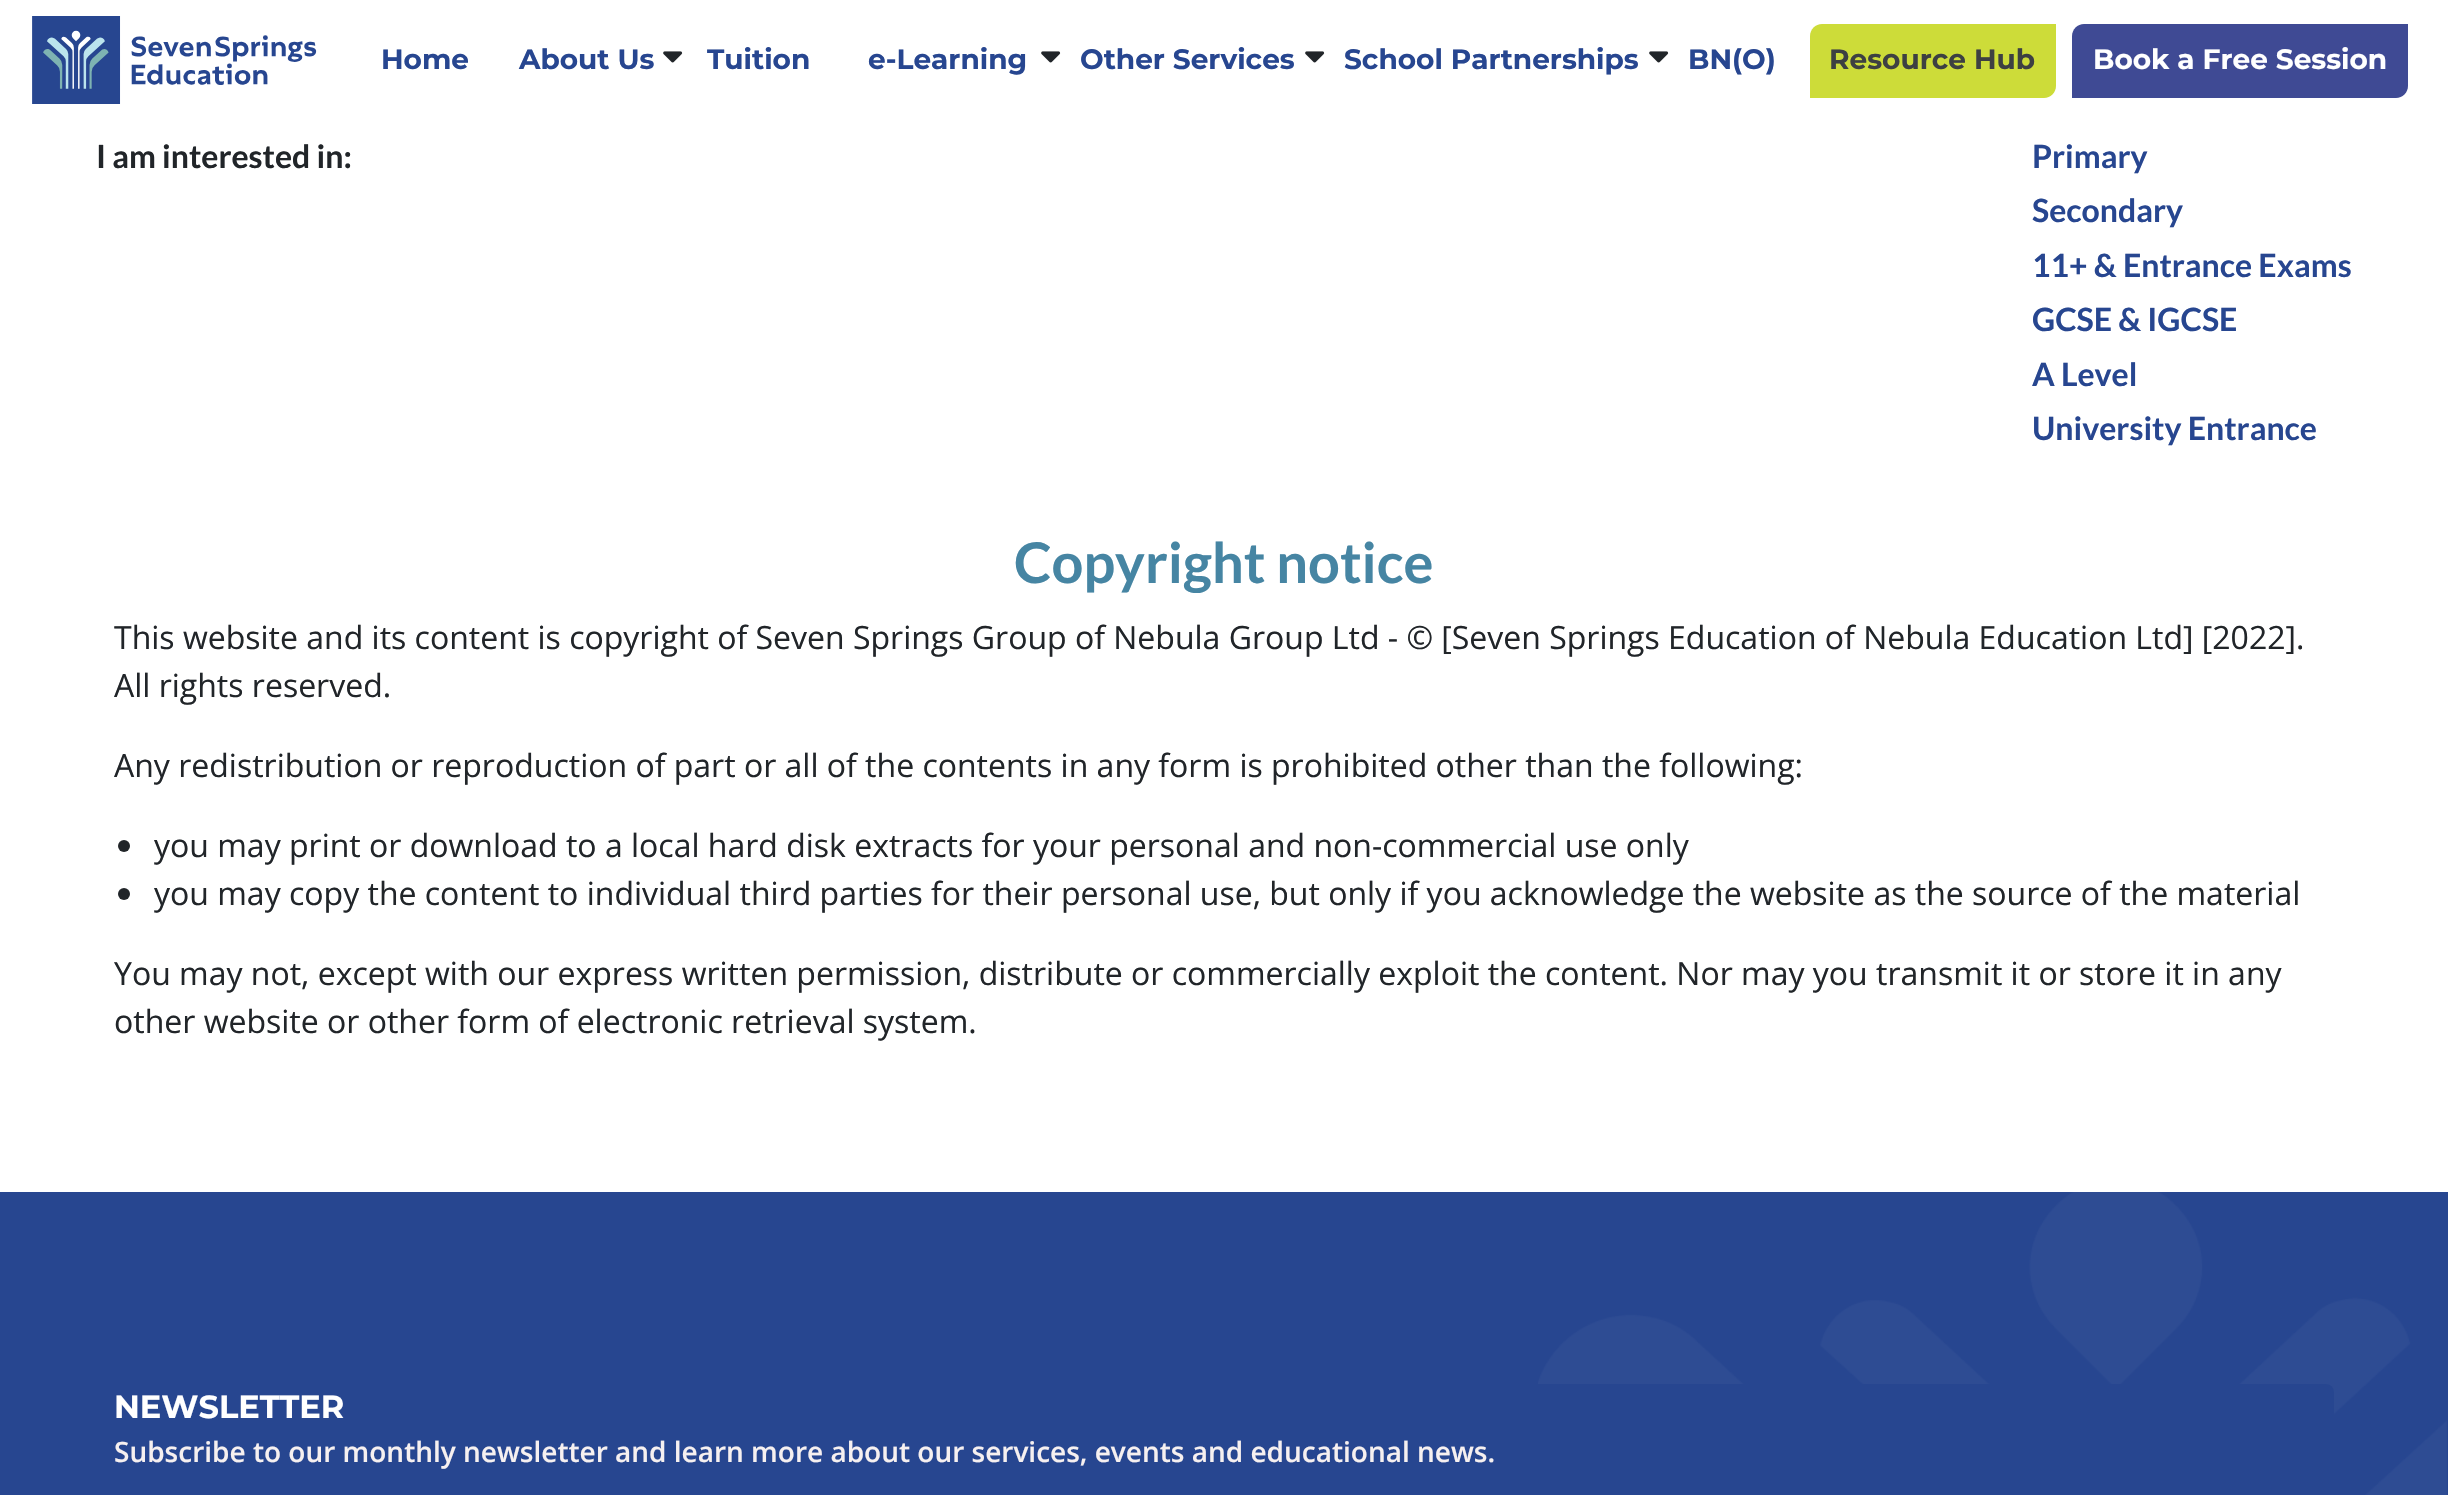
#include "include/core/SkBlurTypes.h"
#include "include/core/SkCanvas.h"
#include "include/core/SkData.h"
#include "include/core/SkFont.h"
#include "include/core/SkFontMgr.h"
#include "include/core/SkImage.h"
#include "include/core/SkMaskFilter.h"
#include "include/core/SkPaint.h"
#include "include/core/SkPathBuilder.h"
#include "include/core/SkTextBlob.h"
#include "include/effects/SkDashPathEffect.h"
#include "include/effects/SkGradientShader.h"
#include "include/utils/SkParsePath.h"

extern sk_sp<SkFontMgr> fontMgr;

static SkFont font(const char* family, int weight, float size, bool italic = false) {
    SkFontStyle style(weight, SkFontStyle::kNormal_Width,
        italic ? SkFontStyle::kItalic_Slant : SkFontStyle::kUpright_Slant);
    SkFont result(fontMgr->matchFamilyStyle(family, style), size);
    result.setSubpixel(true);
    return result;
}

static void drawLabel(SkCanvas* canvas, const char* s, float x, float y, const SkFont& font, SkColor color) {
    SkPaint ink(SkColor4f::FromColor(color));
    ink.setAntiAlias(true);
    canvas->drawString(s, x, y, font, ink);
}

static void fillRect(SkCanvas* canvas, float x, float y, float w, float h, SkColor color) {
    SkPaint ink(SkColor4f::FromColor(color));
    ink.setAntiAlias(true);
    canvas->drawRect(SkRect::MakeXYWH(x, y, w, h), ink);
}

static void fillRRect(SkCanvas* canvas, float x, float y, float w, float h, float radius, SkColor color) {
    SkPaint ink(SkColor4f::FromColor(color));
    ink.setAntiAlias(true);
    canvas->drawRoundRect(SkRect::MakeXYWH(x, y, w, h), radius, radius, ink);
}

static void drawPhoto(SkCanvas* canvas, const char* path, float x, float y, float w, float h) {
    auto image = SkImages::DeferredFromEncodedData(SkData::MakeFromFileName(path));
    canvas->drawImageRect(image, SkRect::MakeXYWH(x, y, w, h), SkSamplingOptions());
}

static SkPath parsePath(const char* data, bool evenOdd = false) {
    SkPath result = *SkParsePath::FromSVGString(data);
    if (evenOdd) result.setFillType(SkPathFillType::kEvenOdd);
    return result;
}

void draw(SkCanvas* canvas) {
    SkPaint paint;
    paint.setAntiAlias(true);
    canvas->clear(0xFFFFFFFF);
    drawPhoto(canvas, "assets/img1.png", 32, 16, 285, 88);
    SkFont font1 = font("Montserrat", 100, 28);
    drawLabel(canvas, "Home", 381, 69, font1, 0xFF274690);
    drawLabel(canvas, "About Us", 519, 69, font1, 0xFF274690);
    drawPhoto(canvas, "assets/img2.png", 663, 51, 20, 12);
    drawLabel(canvas, "Tuition", 707, 69, font1, 0xFF274690);
    drawLabel(canvas, "e-Learning", 868, 69, font1, 0xFF274690);
    drawPhoto(canvas, "assets/img2.png", 1041, 51, 20, 12);
    drawLabel(canvas, "Other Services", 1080, 69, font1, 0xFF274690);
    drawPhoto(canvas, "assets/img2.png", 1305, 51, 20, 12);
    drawLabel(canvas, "School Partnerships", 1344, 69, font1, 0xFF274690);
    drawPhoto(canvas, "assets/img2.png", 1649, 51, 20, 12);
    drawLabel(canvas, "BN(O)", 1688, 69, font1, 0xFF274690);
    paint.setColor(0xFFCDDC39);
    canvas->drawPath(parsePath("M1822 24H2056V86C2056 92.5 2050.5 98 2044 98H1810V36C1810 29.5 1815.5 24 1822 24Z"), paint);
    drawLabel(canvas, "Resource Hub", 1829, 69, font1, 0xFF3D4042);
    paint.setColor(0xFF3F4A94);
    canvas->drawPath(parsePath("M2084 24H2408V86C2408 92.5 2402.5 98 2396 98H2072V36C2072 29.5 2077.5 24 2084 24Z"), paint);
    drawLabel(canvas, "Book a Free Session", 2093, 69, font1, 0xFFFFFFFF);
    SkFont font2 = font("Lato", 700, 32);
    drawLabel(canvas, "I am interested in:", 96, 168, font2, 0xFF212529);
    drawLabel(canvas, "Primary", 2032, 168, font2, 0xFF274690);
    drawLabel(canvas, "Secondary", 2032, 222, font2, 0xFF274690);
    drawLabel(canvas, "11+ & Entrance Exams", 2032, 277, font2, 0xFF274690);
    drawLabel(canvas, "GCSE & IGCSE", 2032, 331, font2, 0xFF274690);
    drawLabel(canvas, "A Level", 2032, 386, font2, 0xFF274690);
    drawLabel(canvas, "University Entrance", 2032, 440, font2, 0xFF274690);
    SkFont font3 = font("Lato", 700, 56);
    drawLabel(canvas, "Copyright notice", 1014, 583, font3, 0xFF4685A3);
    SkFont font4 = font("Open Sans", 400, 32);
    drawLabel(canvas, "This website and its content is copyright of Seven Springs Group of Nebula Group Ltd - © [Seven Springs Education of Nebula Education Ltd] [2022].", 114, 649, font4, 0xFF212529);
    drawLabel(canvas, "All rights reserved.", 114, 697, font4, 0xFF212529);
    drawLabel(canvas, "Any redistribution or reproduction of part or all of the contents in any form is prohibited other than the following:", 114, 777, font4, 0xFF212529);
    paint.setColor(0xFF212529);
    canvas->drawCircle(124, 846, 6, paint);
    drawLabel(canvas, "you may print or download to a local hard disk extracts for your personal and non-commercial use only", 154, 857, font4, 0xFF212529);
    canvas->drawCircle(124, 894, 6, paint);
    drawLabel(canvas, "you may copy the content to individual third parties for their personal use, but only if you acknowledge the website as the source of the material", 154, 905, font4, 0xFF212529);
    drawLabel(canvas, "You may not, except with our express written permission, distribute or commercially exploit the content. Nor may you transmit it or store it in any", 114, 985, font4, 0xFF212529);
    drawLabel(canvas, "other website or other form of electronic retrieval system.", 114, 1033, font4, 0xFF212529);
    fillRect(canvas, 0, 1192, 2448, 303, 0xFF274690);
    drawPhoto(canvas, "assets/img3.png", 1538, 1192, 909, 303);
    fillRRect(canvas, 114, 1384, 2220, 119, 8, 0xFF274690);
    SkFont font5 = font("Montserrat", 100, 32);
    drawLabel(canvas, "NEWSLETTER", 114, 1418, font5, 0xFFFFFFFF);
    SkFont font6 = font("Open Sans", 600, 28);
    drawLabel(canvas, "Subscribe to our monthly newsletter and learn more about our services, events and educational news.", 114, 1462, font6, 0xFFF6F0F0);
}
